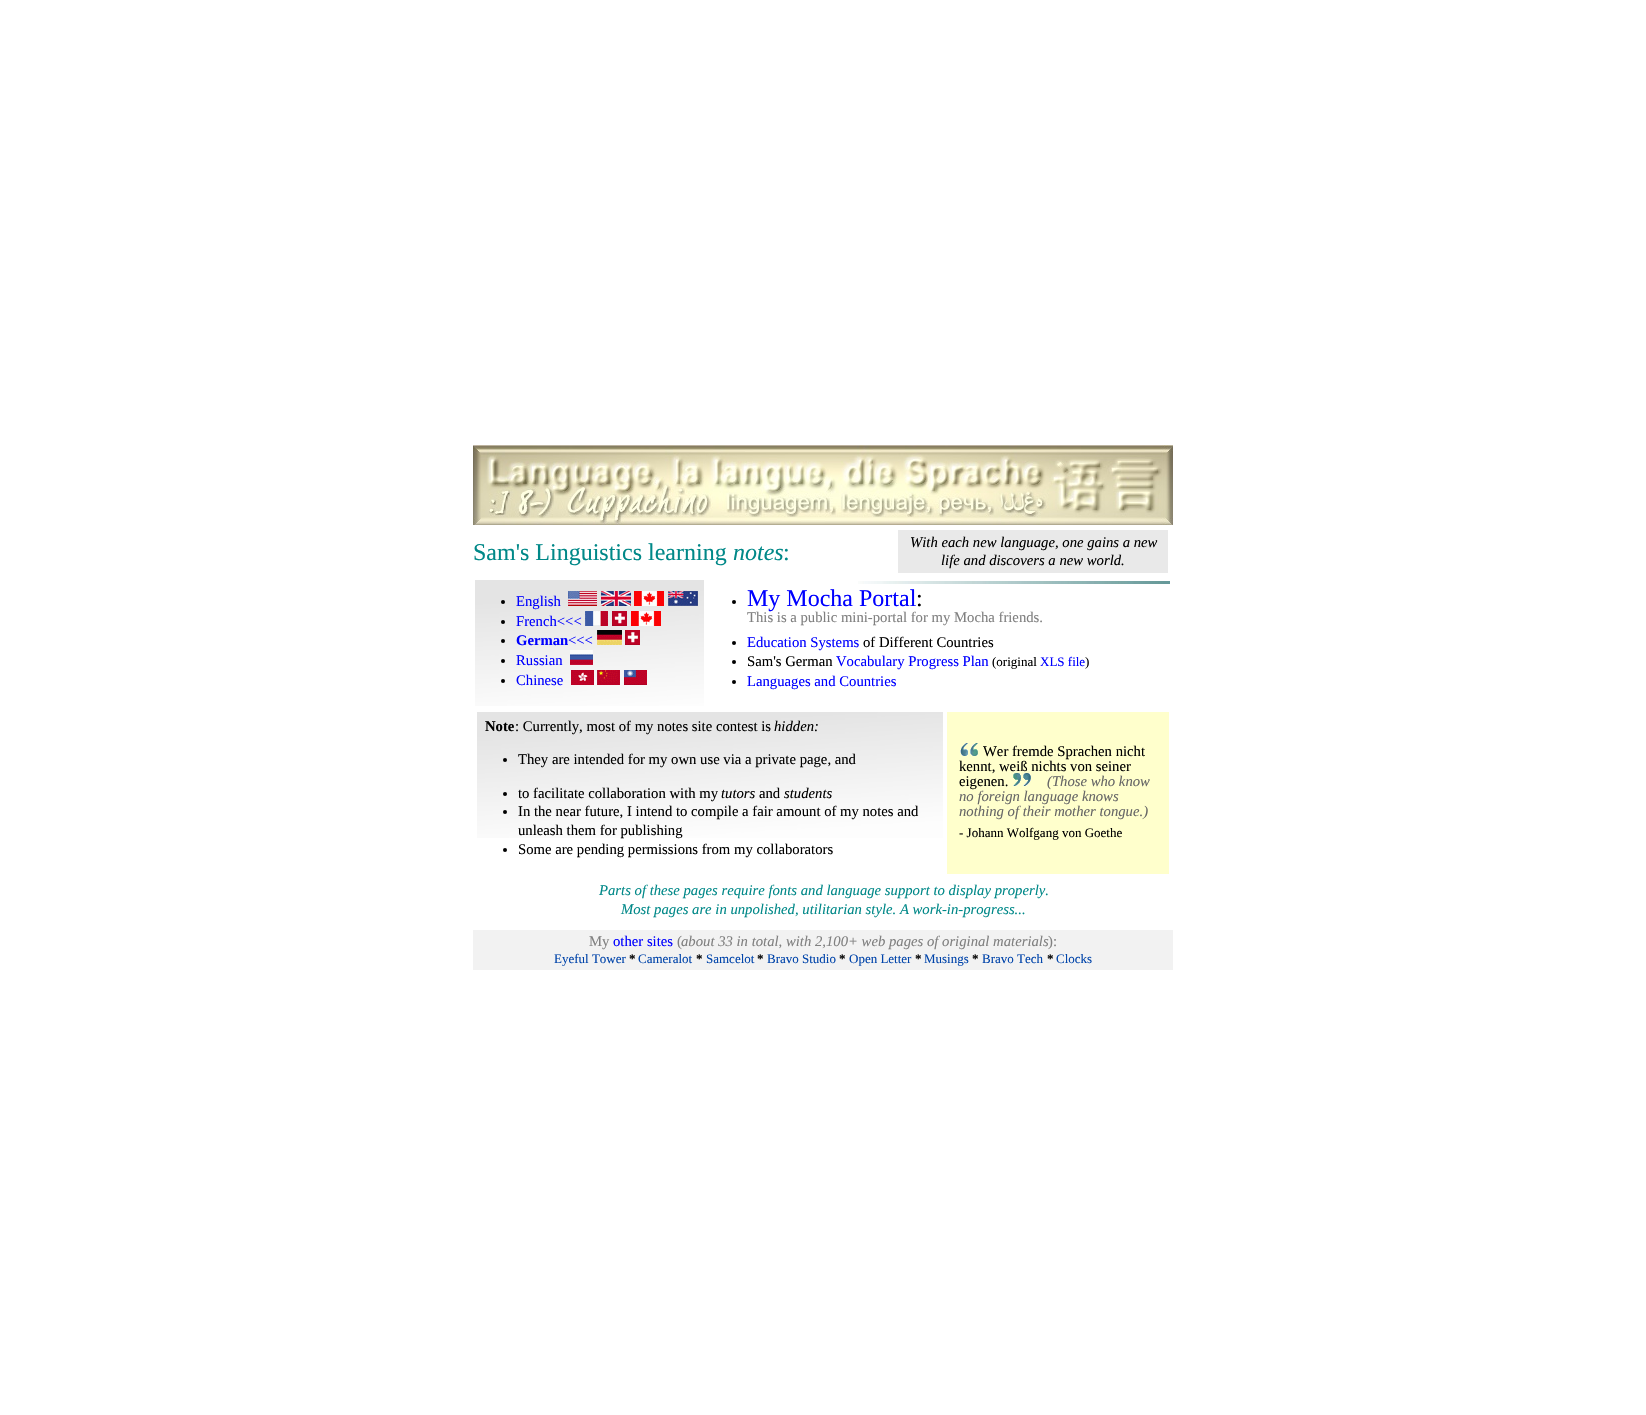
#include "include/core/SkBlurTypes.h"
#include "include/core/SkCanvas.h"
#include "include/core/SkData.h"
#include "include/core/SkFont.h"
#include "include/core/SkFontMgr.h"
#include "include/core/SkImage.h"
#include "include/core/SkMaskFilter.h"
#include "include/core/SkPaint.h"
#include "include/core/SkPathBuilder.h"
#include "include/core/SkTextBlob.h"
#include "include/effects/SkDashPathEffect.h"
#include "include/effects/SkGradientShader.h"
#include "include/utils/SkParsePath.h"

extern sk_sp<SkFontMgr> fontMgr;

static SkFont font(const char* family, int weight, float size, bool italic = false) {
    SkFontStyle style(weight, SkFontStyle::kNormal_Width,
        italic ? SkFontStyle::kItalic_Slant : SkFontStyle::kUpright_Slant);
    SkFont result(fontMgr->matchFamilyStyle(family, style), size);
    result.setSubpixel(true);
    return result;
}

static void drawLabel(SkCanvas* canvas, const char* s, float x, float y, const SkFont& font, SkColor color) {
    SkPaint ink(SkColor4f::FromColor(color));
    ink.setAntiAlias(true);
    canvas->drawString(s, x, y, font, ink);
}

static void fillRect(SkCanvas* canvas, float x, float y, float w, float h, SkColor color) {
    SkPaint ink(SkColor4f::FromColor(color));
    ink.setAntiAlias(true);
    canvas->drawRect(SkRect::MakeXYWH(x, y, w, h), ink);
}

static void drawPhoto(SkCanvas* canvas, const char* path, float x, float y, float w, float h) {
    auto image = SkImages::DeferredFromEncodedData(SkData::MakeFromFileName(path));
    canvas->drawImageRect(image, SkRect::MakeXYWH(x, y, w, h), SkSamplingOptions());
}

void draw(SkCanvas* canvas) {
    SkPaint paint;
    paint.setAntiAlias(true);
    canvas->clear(0xFFFFFFFF);
    drawPhoto(canvas, "assets/img1.png", 473, 445, 700, 80);
    SkFont font1 = font("Liberation Serif", 400, 24);
    drawLabel(canvas, "Sam's Linguistics learning", 473, 560, font1, 0xFF008888);
    SkFont font2 = font("Liberation Serif", 400, 24, true);
    drawLabel(canvas, "notes", 733, 560, font2, 0xFF008888);
    drawLabel(canvas, ":", 783, 560, font1, 0xFF008888);
    fillRect(canvas, 898, 530, 270, 43, 0xFFE9E9E9);
    SkFont font3 = font("Liberation Serif", 400, 14.7f, true);
    drawLabel(canvas, "With each new language, one gains a new", 910, 547, font3, 0xFF000000);
    drawLabel(canvas, "life and discovers a new world.", 941, 565, font3, 0xFF000000);
    drawPhoto(canvas, "assets/img2.png", 475, 580, 229, 126);
    paint.setColor(0xFF000000);
    canvas->drawCircle(503, 602, 2, paint);
    SkFont font4 = font("Liberation Serif", 400, 14.7f);
    drawLabel(canvas, "English", 516, 606, font4, 0xFF0000FF);
    drawPhoto(canvas, "assets/img3.png", 568, 591, 29, 15);
    drawPhoto(canvas, "assets/img4.png", 601, 591, 30, 15);
    drawPhoto(canvas, "assets/img5.png", 634, 591, 30, 15);
    drawPhoto(canvas, "assets/img6.png", 668, 591, 30, 15);
    canvas->drawCircle(503, 622, 2, paint);
    drawLabel(canvas, "French<<<", 516, 626, font4, 0xFF0000FF);
    drawPhoto(canvas, "assets/img7.png", 585, 611, 23, 15);
    drawPhoto(canvas, "assets/img8.png", 612, 611, 15, 15);
    drawPhoto(canvas, "assets/img5.png", 631, 611, 30, 15);
    canvas->drawCircle(503, 641, 2, paint);
    SkFont font5 = font("Liberation Serif", 700, 14.7f);
    drawLabel(canvas, "German", 516, 645, font5, 0xFF0000FF);
    drawLabel(canvas, "<<<", 568, 645, font4, 0xFF0000FF);
    drawPhoto(canvas, "assets/img9.png", 597, 630, 25, 15);
    drawPhoto(canvas, "assets/img8.png", 625, 630, 15, 15);
    canvas->drawCircle(503, 661, 2, paint);
    drawLabel(canvas, "Russian", 516, 665, font4, 0xFF0000FF);
    drawPhoto(canvas, "assets/img10.png", 570, 650, 23, 15);
    canvas->drawCircle(503, 681, 2, paint);
    drawLabel(canvas, "Chinese", 516, 685, font4, 0xFF0000FF);
    drawPhoto(canvas, "assets/img11.png", 571, 670, 23, 15);
    drawPhoto(canvas, "assets/img12.png", 597, 670, 23, 15);
    drawPhoto(canvas, "assets/img13.png", 624, 670, 23, 15);
    drawPhoto(canvas, "assets/img14.png", 858, 581, 312, 3);
    canvas->drawCircle(734, 602, 2, paint);
    drawLabel(canvas, "My Mocha Portal", 747, 606, font1, 0xFF0000FF);
    drawLabel(canvas, ":", 916, 606, font1, 0xFF000000);
    drawLabel(canvas, "This is a public mini-portal for my Mocha friends.", 747, 622, font4, 0xFF808080);
    canvas->drawCircle(734, 643, 2, paint);
    drawLabel(canvas, "Education Systems", 747, 647, font4, 0xFF0000FF);
    drawLabel(canvas, "of Different Countries", 863, 647, font4, 0xFF000000);
    canvas->drawCircle(734, 662, 2, paint);
    drawLabel(canvas, "Sam's German", 747, 666, font4, 0xFF000000);
    drawLabel(canvas, "Vocabulary Progress Plan", 836, 666, font4, 0xFF0000FF);
    SkFont font6 = font("Liberation Serif", 400, 13);
    drawLabel(canvas, "(original", 992, 666, font6, 0xFF000000);
    drawLabel(canvas, "XLS file", 1040, 666, font6, 0xFF0000FF);
    drawLabel(canvas, ")", 1085, 666, font6, 0xFF000000);
    canvas->drawCircle(734, 682, 2, paint);
    drawLabel(canvas, "Languages and Countries", 747, 686, font4, 0xFF0000FF);
    drawPhoto(canvas, "assets/img15.png", 477, 712, 466, 126);
    drawLabel(canvas, "Note", 485, 731, font5, 0xFF000000);
    drawLabel(canvas, ": Currently, most of my notes site contest is", 515, 731, font4, 0xFF000000);
    drawLabel(canvas, "hidden:", 774, 731, font3, 0xFF000000);
    canvas->drawCircle(505, 760, 2, paint);
    drawLabel(canvas, "They are intended for my own use via a private page, and", 518, 764, font4, 0xFF000000);
    canvas->drawCircle(505, 794, 2, paint);
    drawLabel(canvas, "to facilitate collaboration with my", 518, 798, font4, 0xFF000000);
    drawLabel(canvas, "tutors", 721, 798, font3, 0xFF000000);
    drawLabel(canvas, "and", 759, 798, font4, 0xFF000000);
    drawLabel(canvas, "students", 784, 798, font3, 0xFF000000);
    canvas->drawCircle(505, 812, 2, paint);
    drawLabel(canvas, "In the near future, I intend to compile a fair amount of my notes and", 518, 816, font4, 0xFF000000);
    drawLabel(canvas, "unleash them for publishing", 518, 835, font4, 0xFF000000);
    canvas->drawCircle(505, 850, 2, paint);
    drawLabel(canvas, "Some are pending permissions from my collaborators", 518, 854, font4, 0xFF000000);
    fillRect(canvas, 947, 712, 222, 162, 0xFFFFFFCC);
    drawPhoto(canvas, "assets/img16.png", 960, 743, 18, 13);
    drawLabel(canvas, "Wer fremde Sprachen nicht", 983, 756, font4, 0xFF000000);
    drawLabel(canvas, "kennt, weiß nichts von seiner", 959, 771, font4, 0xFF000000);
    drawLabel(canvas, "eigenen.", 959, 786, font4, 0xFF000000);
    drawPhoto(canvas, "assets/img17.png", 1013, 773, 18, 13);
    drawLabel(canvas, "(Those who know", 1047, 786, font3, 0xFF666666);
    drawLabel(canvas, "no foreign language knows", 959, 801, font3, 0xFF666666);
    drawLabel(canvas, "nothing of their mother tongue.)", 959, 816, font3, 0xFF666666);
    drawLabel(canvas, "- Johann Wolfgang von Goethe", 959, 837, font6, 0xFF000000);
    drawLabel(canvas, "Parts of these pages require fonts and language support to display properly.", 599, 895, font3, 0xFF008888);
    drawLabel(canvas, "Most pages are in unpolished, utilitarian style. A work-in-progress...", 621, 914, font3, 0xFF008888);
    fillRect(canvas, 473, 930, 700, 40, 0xFFF2F2F2);
    drawLabel(canvas, "My", 589, 946, font4, 0xFF808080);
    drawLabel(canvas, "other sites", 613, 946, font4, 0xFF0000FF);
    drawLabel(canvas, "(", 677, 946, font4, 0xFF808080);
    drawLabel(canvas, "about 33 in total, with 2,100+ web pages of original materials", 681, 946, font3, 0xFF808080);
    drawLabel(canvas, "):", 1048, 946, font4, 0xFF808080);
    drawLabel(canvas, "Eyeful Tower", 554, 963, font6, 0xFF0044AA);
    SkFont font7 = font("Liberation Serif", 700, 13);
    drawLabel(canvas, "*", 629, 963, font7, 0xFF000000);
    drawLabel(canvas, "Cameralot", 638, 963, font6, 0xFF0044AA);
    drawLabel(canvas, "*", 696, 963, font7, 0xFF000000);
    drawLabel(canvas, "Samcelot", 706, 963, font6, 0xFF0044AA);
    drawLabel(canvas, "*", 757, 963, font7, 0xFF000000);
    drawLabel(canvas, "Bravo Studio", 767, 963, font6, 0xFF0044AA);
    drawLabel(canvas, "*", 839, 963, font7, 0xFF000000);
    drawLabel(canvas, "Open Letter", 849, 963, font6, 0xFF0044AA);
    drawLabel(canvas, "*", 915, 963, font7, 0xFF000000);
    drawLabel(canvas, "Musings", 924, 963, font6, 0xFF0044AA);
    drawLabel(canvas, "*", 972, 963, font7, 0xFF000000);
    drawLabel(canvas, "Bravo Tech", 982, 963, font6, 0xFF0044AA);
    drawLabel(canvas, "*", 1047, 963, font7, 0xFF000000);
    drawLabel(canvas, "Clocks", 1056, 963, font6, 0xFF0044AA);
}
